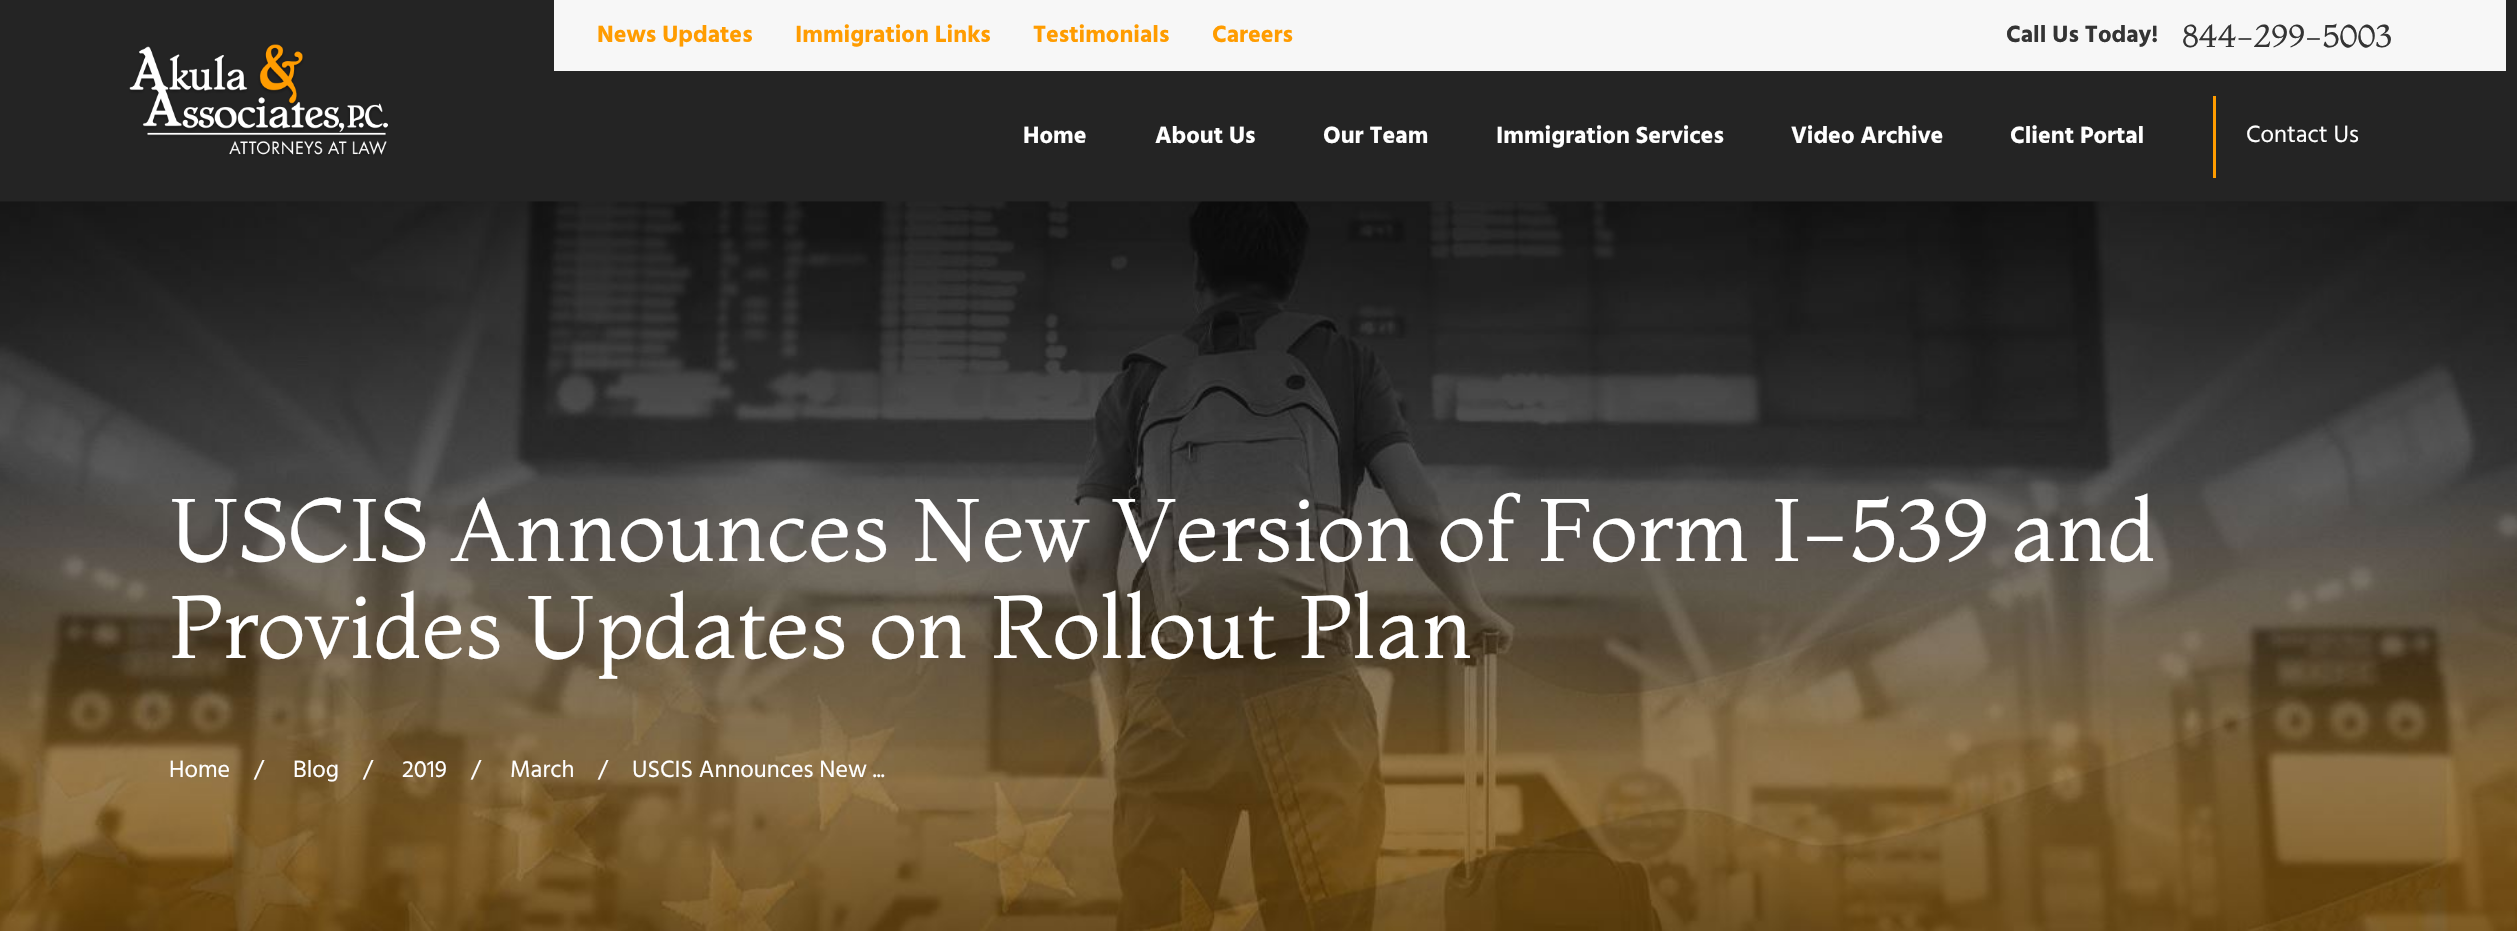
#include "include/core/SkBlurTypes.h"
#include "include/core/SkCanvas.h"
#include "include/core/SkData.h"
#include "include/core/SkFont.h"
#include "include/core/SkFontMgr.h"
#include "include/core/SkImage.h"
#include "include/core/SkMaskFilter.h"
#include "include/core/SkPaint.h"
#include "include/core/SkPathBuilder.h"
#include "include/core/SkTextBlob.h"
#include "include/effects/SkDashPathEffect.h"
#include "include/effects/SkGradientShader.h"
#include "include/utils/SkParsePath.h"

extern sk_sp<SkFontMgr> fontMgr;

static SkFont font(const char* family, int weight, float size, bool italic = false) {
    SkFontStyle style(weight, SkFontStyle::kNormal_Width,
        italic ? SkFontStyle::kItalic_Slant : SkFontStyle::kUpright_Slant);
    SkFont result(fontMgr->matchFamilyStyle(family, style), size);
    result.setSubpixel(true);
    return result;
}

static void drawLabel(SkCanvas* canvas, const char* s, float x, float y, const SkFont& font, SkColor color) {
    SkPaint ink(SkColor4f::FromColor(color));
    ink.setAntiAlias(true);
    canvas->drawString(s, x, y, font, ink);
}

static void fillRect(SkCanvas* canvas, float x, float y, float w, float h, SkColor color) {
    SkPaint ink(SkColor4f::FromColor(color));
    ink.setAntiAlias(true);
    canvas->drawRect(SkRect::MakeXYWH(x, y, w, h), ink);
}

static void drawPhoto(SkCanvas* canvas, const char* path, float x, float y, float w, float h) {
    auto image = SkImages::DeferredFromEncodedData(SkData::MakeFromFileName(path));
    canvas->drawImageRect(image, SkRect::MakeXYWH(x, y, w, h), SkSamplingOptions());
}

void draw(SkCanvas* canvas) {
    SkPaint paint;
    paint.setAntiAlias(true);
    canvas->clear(0xFF242424);
    drawPhoto(canvas, "assets/img1.png", 129, 44, 259, 112);
    fillRect(canvas, 554, 0, 1952, 71, 0xFFF7F7F7);
    SkFont font1 = font("Hind", 700, 24);
    drawLabel(canvas, "News Updates", 597, 42, font1, 0xFFFF9C00);
    drawLabel(canvas, "Immigration Links", 795, 42, font1, 0xFFFF9C00);
    drawLabel(canvas, "Testimonials", 1033, 42, font1, 0xFFFF9C00);
    drawLabel(canvas, "Careers", 1212, 42, font1, 0xFFFF9C00);
    drawLabel(canvas, "Call Us Today!", 2006, 42, font1, 0xFF343434);
    SkFont font2 = font("Montaga", 400, 32);
    drawLabel(canvas, "844-299-5003", 2182, 47, font2, 0xFF343434);
    drawLabel(canvas, "Home", 1023, 143, font1, 0xFFFFFFFF);
    drawLabel(canvas, "About Us", 1155, 143, font1, 0xFFFFFFFF);
    drawLabel(canvas, "Our Team", 1323, 143, font1, 0xFFFFFFFF);
    drawLabel(canvas, "Immigration Services", 1496, 143, font1, 0xFFFFFFFF);
    drawLabel(canvas, "Video Archive", 1791, 143, font1, 0xFFFFFFFF);
    drawLabel(canvas, "Client Portal", 2010, 143, font1, 0xFFFFFFFF);
    fillRect(canvas, 2213, 96, 3, 82, 0xFFFF9C00);
    SkFont font3 = font("Hind", 400, 24);
    drawLabel(canvas, "Contact Us", 2246, 142, font3, 0xFFFFFFFF);
    drawPhoto(canvas, "assets/img2.png", 0, 201, 2517, 730);
    SkFont font4 = font("Montaga", 400, 88.5f);
    drawLabel(canvas, "USCIS Announces New Version of Form I-539 and", 169, 561, font4, 0xFFFFFFFF);
    drawLabel(canvas, "Provides Updates on Rollout Plan", 169, 658, font4, 0xFFFFFFFF);
    drawLabel(canvas, "Home", 169, 777, font3, 0xFFFFFFFF);
    drawLabel(canvas, "/", 254, 777, font3, 0xFFFFFFFF);
    drawLabel(canvas, "Blog", 293, 777, font3, 0xFFFFFFFF);
    drawLabel(canvas, "/", 363, 777, font3, 0xFFFFFFFF);
    drawLabel(canvas, "2019", 402, 777, font3, 0xFFFFFFFF);
    drawLabel(canvas, "/", 471, 777, font3, 0xFFFFFFFF);
    drawLabel(canvas, "March", 510, 777, font3, 0xFFFFFFFF);
    drawLabel(canvas, "/", 598, 777, font3, 0xFFFFFFFF);
    drawLabel(canvas, "USCIS Announces New ...", 632, 777, font3, 0xFFFFFFFF);
}
